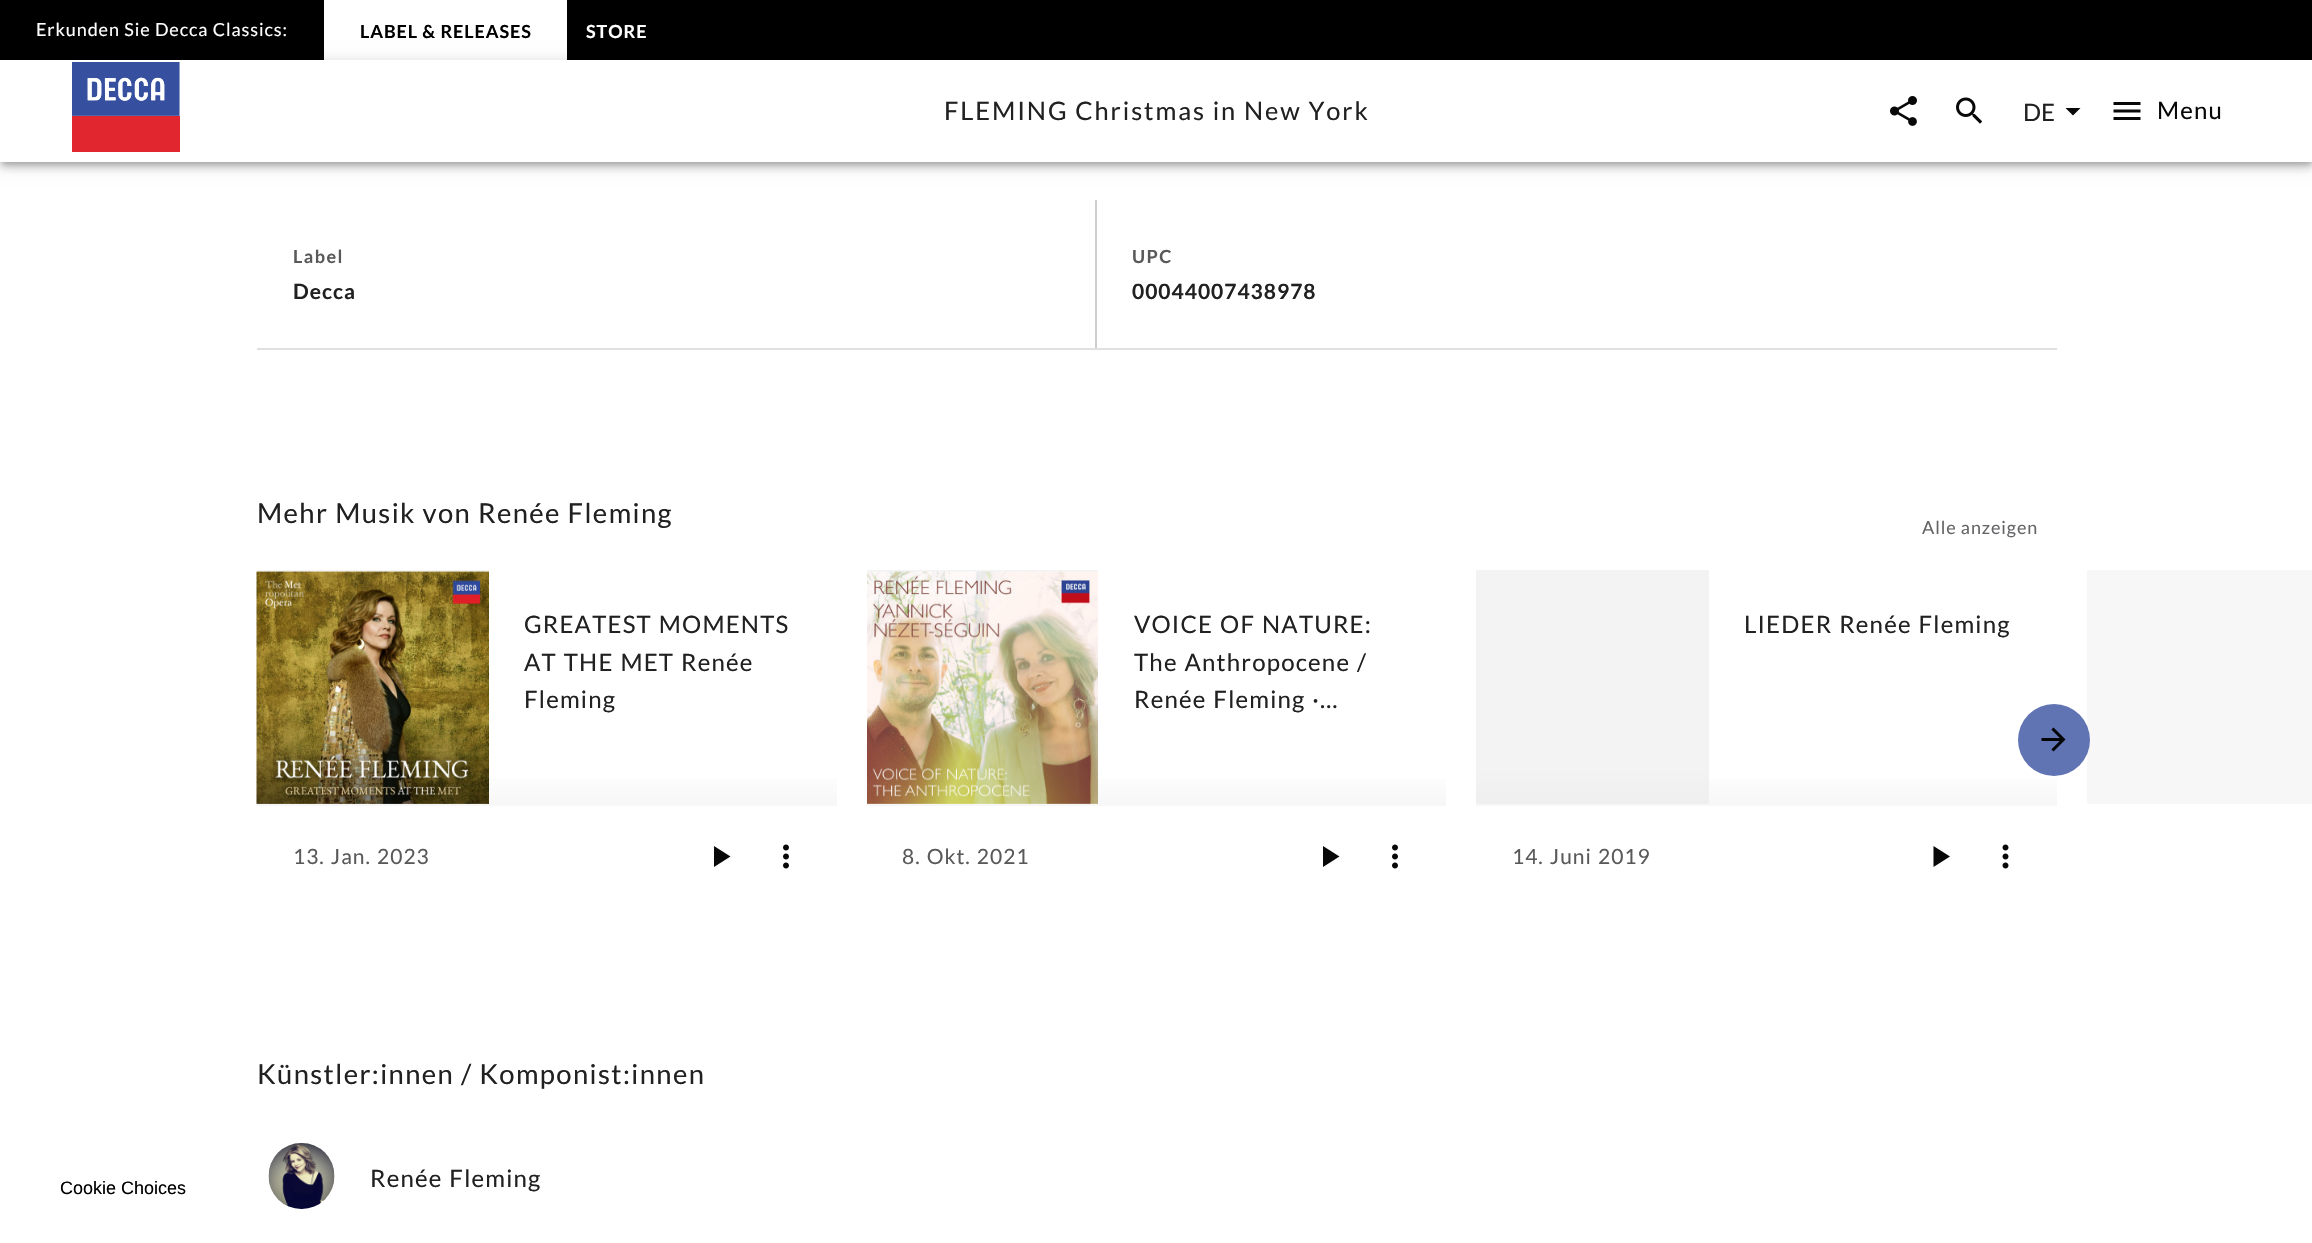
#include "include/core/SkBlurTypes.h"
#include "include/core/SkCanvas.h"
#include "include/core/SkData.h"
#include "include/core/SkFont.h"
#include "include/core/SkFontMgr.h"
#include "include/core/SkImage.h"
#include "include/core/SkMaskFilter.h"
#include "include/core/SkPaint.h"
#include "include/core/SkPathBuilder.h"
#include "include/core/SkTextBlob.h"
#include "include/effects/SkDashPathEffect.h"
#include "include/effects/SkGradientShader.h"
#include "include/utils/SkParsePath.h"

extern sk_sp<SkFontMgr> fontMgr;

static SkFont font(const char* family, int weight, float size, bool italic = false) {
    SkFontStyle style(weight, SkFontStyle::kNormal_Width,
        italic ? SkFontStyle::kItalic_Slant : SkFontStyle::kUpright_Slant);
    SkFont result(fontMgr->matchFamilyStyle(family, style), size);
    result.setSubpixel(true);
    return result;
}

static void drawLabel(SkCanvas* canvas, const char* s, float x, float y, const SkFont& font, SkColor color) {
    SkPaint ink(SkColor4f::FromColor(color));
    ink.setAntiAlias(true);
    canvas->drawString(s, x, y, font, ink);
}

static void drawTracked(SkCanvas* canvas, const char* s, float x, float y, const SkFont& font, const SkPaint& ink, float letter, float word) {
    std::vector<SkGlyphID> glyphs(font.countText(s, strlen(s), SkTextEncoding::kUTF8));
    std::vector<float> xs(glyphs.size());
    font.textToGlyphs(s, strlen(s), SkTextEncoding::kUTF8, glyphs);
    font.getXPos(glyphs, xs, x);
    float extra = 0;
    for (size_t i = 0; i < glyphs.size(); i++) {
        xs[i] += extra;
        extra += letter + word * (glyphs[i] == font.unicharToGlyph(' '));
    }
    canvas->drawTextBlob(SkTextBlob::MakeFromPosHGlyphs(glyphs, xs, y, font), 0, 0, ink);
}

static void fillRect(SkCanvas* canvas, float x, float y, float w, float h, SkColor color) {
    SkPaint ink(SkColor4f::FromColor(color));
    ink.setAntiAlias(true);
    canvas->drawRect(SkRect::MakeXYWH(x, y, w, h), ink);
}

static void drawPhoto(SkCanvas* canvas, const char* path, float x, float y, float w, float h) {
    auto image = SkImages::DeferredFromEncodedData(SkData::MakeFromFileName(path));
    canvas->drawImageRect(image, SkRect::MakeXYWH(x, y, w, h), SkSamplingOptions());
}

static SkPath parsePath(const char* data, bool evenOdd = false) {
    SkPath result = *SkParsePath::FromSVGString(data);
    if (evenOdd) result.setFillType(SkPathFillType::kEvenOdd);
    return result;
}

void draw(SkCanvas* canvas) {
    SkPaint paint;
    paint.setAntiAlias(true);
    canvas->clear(0xFFFFFFFF);
    fillRect(canvas, 0, 0, 2312, 60, 0xFF000000);
    SkFont font1 = font("Lato", 400, 18);
    paint.setColor(0xFFFFFFFF);
    drawTracked(canvas, "Erkunden Sie Decca Classics:", 36, 36, font1, paint, 0.9f, 0);
    fillRect(canvas, 324, 0, 243, 60, 0xFFFFFFFF);
    SkFont font2 = font("Lato", 700, 18);
    paint.setColor(0xFF000000);
    drawTracked(canvas, "LABEL & RELEASES", 360, 38, font2, paint, 0.9f, 0);
    paint.setColor(0xFFFFFFFF);
    drawTracked(canvas, "STORE", 586, 38, font2, paint, 0.9f, 0);
    paint.setColor(0x1F000000);
    paint.setMaskFilter(SkMaskFilter::MakeBlur(kNormal_SkBlurStyle, 7.5f));
    canvas->drawRect(SkRect::MakeXYWH(0, 62, 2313, 102), paint);
    paint.setMaskFilter(nullptr);
    paint.setColor(0x24000000);
    paint.setMaskFilter(SkMaskFilter::MakeBlur(kNormal_SkBlurStyle, 4));
    canvas->drawRect(SkRect::MakeXYWH(0, 66, 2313, 102), paint);
    paint.setMaskFilter(nullptr);
    paint.setColor(0x33000000);
    paint.setMaskFilter(SkMaskFilter::MakeBlur(kNormal_SkBlurStyle, 3));
    canvas->drawRect(SkRect::MakeXYWH(2, 65, 2310, 99), paint);
    paint.setMaskFilter(nullptr);
    fillRect(canvas, 0, 60, 2312, 102, 0xFFFFFFFF);
    drawPhoto(canvas, "assets/img1.png", 72, 62, 108, 90);
    SkFont font3 = font("Lato", 400, 25.4f);
    paint.setColor(0xFF212121);
    drawTracked(canvas, "FLEMING Christmas in New York", 944, 120, font3, paint, 1.9f, 0);
    drawPhoto(canvas, "assets/img2.png", 1890, 96, 27, 30);
    drawPhoto(canvas, "assets/img3.png", 1956, 97, 27, 27);
    SkFont font4 = font("Lato", 400, 24);
    drawLabel(canvas, "DE", 2023, 121, font4, 0xFF212121);
    paint.setColor(0xFF080808);
    canvas->drawPath(parsePath("M2065.5 108L2073 115.5L2080.5 108Z"), paint);
    drawPhoto(canvas, "assets/img4.png", 2113, 102, 28, 18);
    drawTracked(canvas, "Menu", 2157, 119, font4, paint, 1.2f, 0);
    fillRect(canvas, 1095, 200, 2, 148, 0xFFCCCECF);
    paint.setColor(0xFF595959);
    drawTracked(canvas, "Label", 293, 263, font2, paint, 1.5f, 0);
    SkFont font5 = font("Lato", 700, 21);
    paint.setColor(0xFF212121);
    drawTracked(canvas, "Decca", 293, 299, font5, paint, 1, 0);
    paint.setColor(0xFF595959);
    drawTracked(canvas, "UPC", 1132, 263, font2, paint, 1.5f, 0);
    paint.setColor(0xFF212121);
    drawTracked(canvas, "00044007438978", 1132, 299, font5, paint, 1, 0);
    fillRect(canvas, 257, 348, 1800, 2, 0xFFE0E0E0);
    SkFont font6 = font("Lato", 400, 27.4f);
    drawTracked(canvas, "Mehr Musik von Renée Fleming", 257, 523, font6, paint, 1.4f, 0);
    paint.setColor(0xFF656568);
    drawTracked(canvas, "Alle anzeigen", 1922, 534, font1, paint, 0.9f, 0);
    fillRect(canvas, 257, 570, 232, 2, 0xFFF3F3F3);
    {
        const SkColor colors[] = {0xFFFFFFFF, 0xFFF7F7F7};
        const float stops[] = {0, 1};
        const SkPoint ends[] = {{547, 768}, {547, 804}};
        paint.setShader(SkGradientShader::MakeLinear(ends, colors, stops, 2, SkTileMode::kClamp));
        paint.setAlpha(255);
    }
    canvas->drawRect(SkRect::MakeXYWH(257, 779, 580, 25), paint);
    drawPhoto(canvas, "assets/img5.png", 256, 571, 233, 233);
    paint.setShader(nullptr);
    paint.setColor(0xFF212121);
    drawTracked(canvas, "GREATEST MOMENTS", 524, 633, font4, paint, 1.2f, 1);
    drawTracked(canvas, "AT THE MET Renée", 524, 671, font4, paint, 1.2f, 1);
    drawTracked(canvas, "Fleming", 524, 708, font4, paint, 1.2f, 0);
    fillRect(canvas, 257, 804, 580, 2, 0xFFF7F7F7);
    SkFont font7 = font("Lato", 400, 21);
    paint.setColor(0xFF595959);
    drawTracked(canvas, "13. Jan. 2023", 293, 864, font7, paint, 1, 1);
    paint.setColor(0xFF080808);
    canvas->drawPath(parsePath("M714 846V867L730.5 856.5Z"), paint);
    drawPhoto(canvas, "assets/img6.png", 783, 844, 6, 25);
    fillRect(canvas, 867, 570, 231, 2, 0xFFF3F3F3);
    {
        const SkColor colors[] = {0xFFFFFFFF, 0xFFF7F7F7};
        const float stops[] = {0, 1};
        const SkPoint ends[] = {{1157, 768}, {1157, 804}};
        paint.setShader(SkGradientShader::MakeLinear(ends, colors, stops, 2, SkTileMode::kClamp));
        paint.setAlpha(255);
    }
    canvas->drawRect(SkRect::MakeXYWH(867, 779, 579, 25), paint);
    drawPhoto(canvas, "assets/img7.png", 867, 571, 231, 233);
    paint.setShader(nullptr);
    paint.setColor(0xFF212121);
    drawTracked(canvas, "VOICE OF NATURE:", 1134, 633, font4, paint, 1.2f, 1);
    drawTracked(canvas, "The Anthropocene /", 1134, 671, font4, paint, 1.2f, 1);
    drawTracked(canvas, "Renée Fleming ·…", 1134, 708, font4, paint, 1.2f, 1);
    fillRect(canvas, 867, 804, 579, 2, 0xFFF7F7F7);
    paint.setColor(0xFF595959);
    drawTracked(canvas, "8. Okt. 2021", 902, 864, font7, paint, 1, 1);
    paint.setColor(0xFF080808);
    canvas->drawPath(parsePath("M1323 846V867L1339.5 856.5Z"), paint);
    drawPhoto(canvas, "assets/img6.png", 1392, 844, 6, 25);
    fillRect(canvas, 1476, 570, 233, 198, 0xFFF3F3F3);
    paint.setColor(0xFF212121);
    drawTracked(canvas, "LIEDER Renée Fleming", 1744, 633, font4, paint, 1.2f, 1);
    fillRect(canvas, 1476, 804, 581, 2, 0xFFF7F7F7);
    {
        const SkColor colors[] = {0xFFFFFFFF, 0xFFF7F7F7};
        const float stops[] = {0, 1};
        const SkPoint ends[] = {{1766, 768}, {1766, 804}};
        paint.setShader(SkGradientShader::MakeLinear(ends, colors, stops, 2, SkTileMode::kClamp));
        paint.setAlpha(255);
    }
    canvas->drawRect(SkRect::MakeXYWH(1709, 779, 348, 25), paint);
    {
        const SkColor colors[] = {0xFFF3F3F3, 0xFFEFEFEF};
        const float stops[] = {0, 1};
        const SkPoint ends[] = {{1766, 768}, {1766, 804}};
        paint.setShader(SkGradientShader::MakeLinear(ends, colors, stops, 2, SkTileMode::kClamp));
        paint.setAlpha(255);
    }
    canvas->drawRect(SkRect::MakeXYWH(1476, 768, 233, 36), paint);
    paint.setShader(nullptr);
    paint.setColor(0xFF595959);
    drawTracked(canvas, "14. Juni 2019", 1512, 864, font7, paint, 1, 1);
    paint.setColor(0xFF080808);
    canvas->drawPath(parsePath("M1933.5 846V867L1950 856.5Z"), paint);
    drawPhoto(canvas, "assets/img8.png", 2002, 844, 7, 25);
    fillRect(canvas, 2087, 570, 225, 234, 0xFFF7F7F7);
    fillRect(canvas, 2087, 804, 225, 2, 0xFFFAFAFA);
    fillRect(canvas, 2087, 804, 225, 2, 0xDEFFFFFF);
    paint.setColor(0xFF6073B3);
    canvas->drawCircle(2054, 740, 36, paint);
    drawPhoto(canvas, "assets/img9.png", 2041, 727, 25, 25);
    paint.setColor(0xFF212121);
    drawTracked(canvas, "Künstler:innen / Komponist:innen", 257, 1084, font6, paint, 1.4f, 0);
    drawPhoto(canvas, "assets/img10.png", 268, 1143, 67, 66);
    drawTracked(canvas, "Renée Fleming", 370, 1187, font4, paint, 1.2f, 1);
    SkFont font8 = font("Liberation Sans", 400, 18);
    drawLabel(canvas, "Cookie Choices", 60, 1194, font8, 0xFF000000);
}
